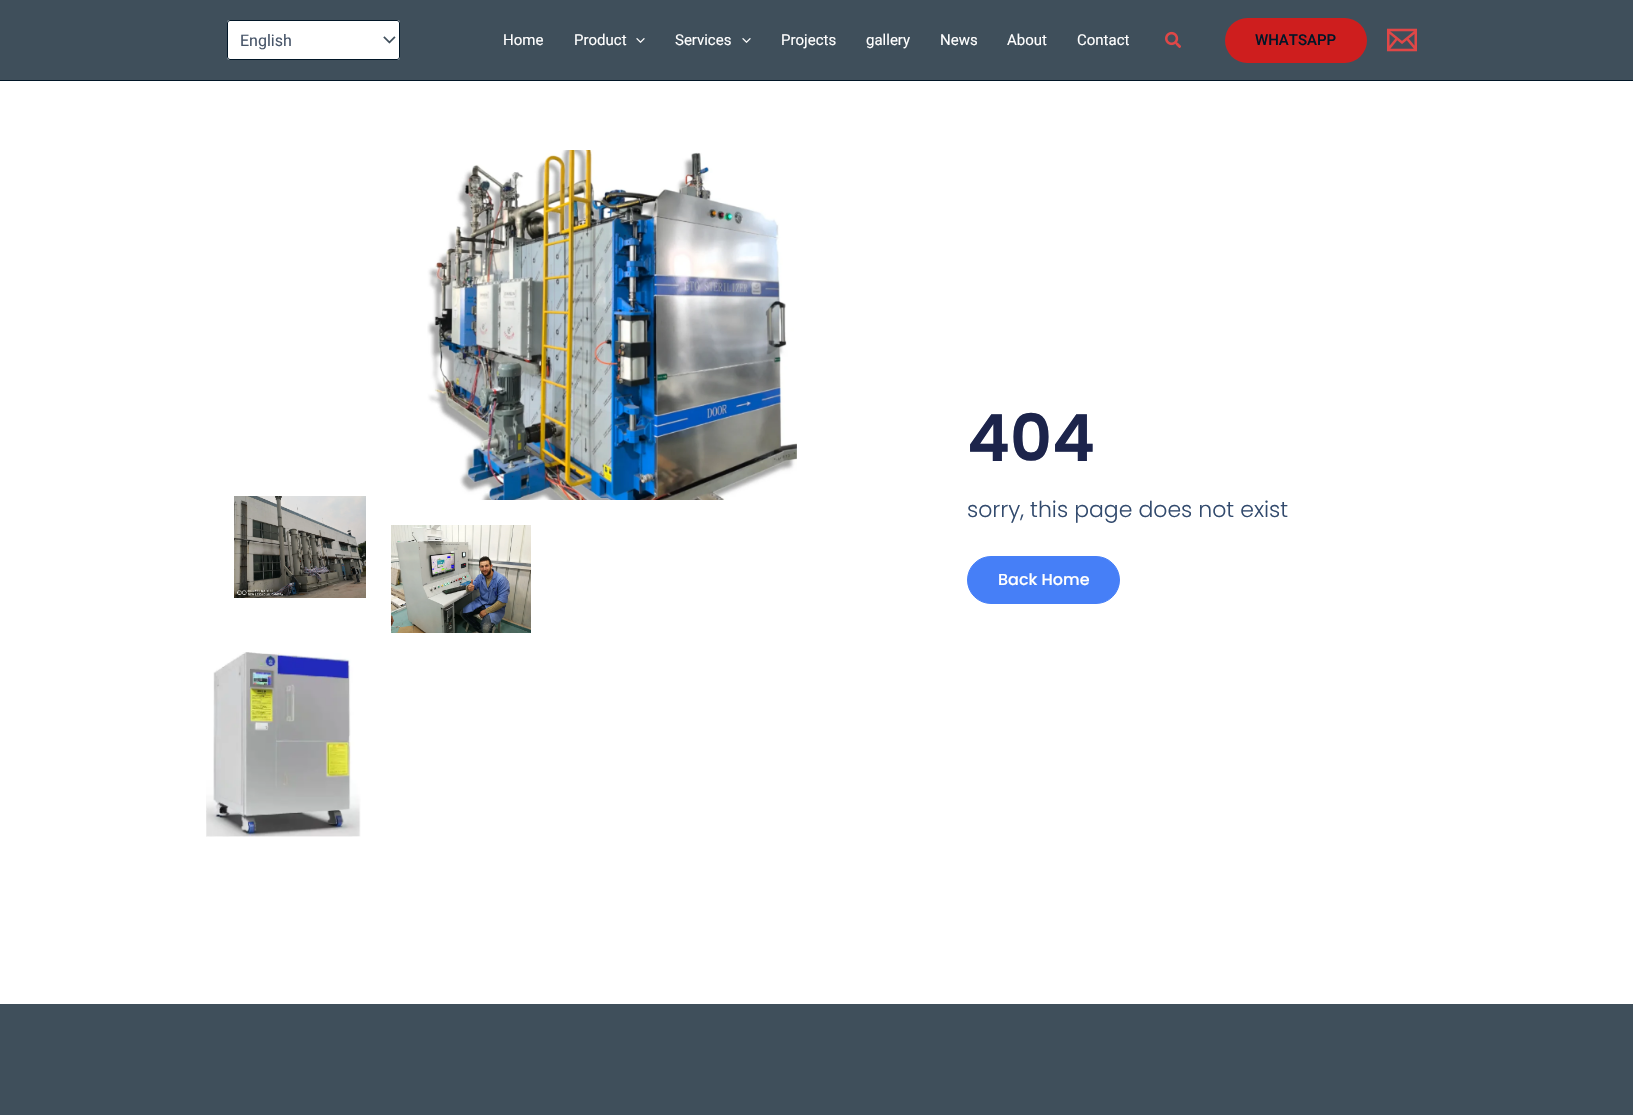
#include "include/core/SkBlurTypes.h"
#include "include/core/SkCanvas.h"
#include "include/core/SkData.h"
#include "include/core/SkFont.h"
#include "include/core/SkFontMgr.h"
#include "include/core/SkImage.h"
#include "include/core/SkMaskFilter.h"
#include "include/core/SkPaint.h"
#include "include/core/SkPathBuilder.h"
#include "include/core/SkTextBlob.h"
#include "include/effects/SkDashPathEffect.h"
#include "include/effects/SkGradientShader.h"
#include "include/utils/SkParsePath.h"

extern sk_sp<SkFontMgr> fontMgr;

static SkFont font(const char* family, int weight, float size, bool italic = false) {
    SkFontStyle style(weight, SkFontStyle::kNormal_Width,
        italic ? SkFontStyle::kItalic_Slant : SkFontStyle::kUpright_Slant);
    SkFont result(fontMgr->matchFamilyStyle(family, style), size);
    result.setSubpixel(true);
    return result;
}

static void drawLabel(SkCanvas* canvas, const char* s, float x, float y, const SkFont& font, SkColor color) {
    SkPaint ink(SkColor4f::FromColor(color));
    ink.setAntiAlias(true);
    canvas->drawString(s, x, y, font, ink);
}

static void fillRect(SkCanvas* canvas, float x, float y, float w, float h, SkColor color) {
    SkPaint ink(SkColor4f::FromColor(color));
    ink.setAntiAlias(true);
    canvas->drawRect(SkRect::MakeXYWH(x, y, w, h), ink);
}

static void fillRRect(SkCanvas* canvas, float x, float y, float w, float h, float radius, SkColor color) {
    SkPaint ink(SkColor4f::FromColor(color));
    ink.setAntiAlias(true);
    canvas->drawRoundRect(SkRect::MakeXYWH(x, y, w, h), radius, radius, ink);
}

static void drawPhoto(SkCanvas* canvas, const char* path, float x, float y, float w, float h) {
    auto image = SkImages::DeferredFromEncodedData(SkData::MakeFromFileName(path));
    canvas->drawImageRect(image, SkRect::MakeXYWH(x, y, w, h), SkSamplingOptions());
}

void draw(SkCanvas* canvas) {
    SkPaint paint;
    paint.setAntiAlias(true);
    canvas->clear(0xFF3F4F5B);
    fillRect(canvas, 0, 80, 1633, 1, 0xFF011627);
    fillRRect(canvas, 227, 20, 173, 40, 3, 0xFFFFFFFF);
    drawPhoto(canvas, "assets/img1.png", 383, 36, 13, 8);
    paint.setStroke(true);
    paint.setStrokeWidth(1);
    paint.setColor(0xFF011627);
    canvas->drawRoundRect(SkRect::MakeXYWH(227.5f, 20.5f, 172, 39), 2.5f, 2.5f, paint);
    SkFont font1 = font("Roboto", 400, 16);
    drawLabel(canvas, "English", 240, 46, font1, 0xFF475569);
    SkFont font2 = font("Roboto", 400, 15);
    drawLabel(canvas, "Home", 503, 45, font2, 0xFFFFFFFF);
    drawLabel(canvas, "Product", 574, 45, font2, 0xFFFFFFFF);
    drawPhoto(canvas, "assets/img2.png", 636, 38, 9, 5);
    drawLabel(canvas, "Services", 675, 45, font2, 0xFFFFFFFF);
    drawPhoto(canvas, "assets/img2.png", 742, 38, 9, 5);
    drawLabel(canvas, "Projects", 781, 45, font2, 0xFFFFFFFF);
    drawLabel(canvas, "gallery", 866, 45, font2, 0xFFFFFFFF);
    drawLabel(canvas, "News", 940, 45, font2, 0xFFFFFFFF);
    drawLabel(canvas, "About", 1007, 45, font2, 0xFFFFFFFF);
    drawLabel(canvas, "Contact", 1077, 45, font2, 0xFFFFFFFF);
    drawPhoto(canvas, "assets/img3.png", 1165, 31, 16, 17);
    fillRRect(canvas, 1225, 18, 142, 45, 22.5f, 0xFFCE1E1E);
    SkFont font3 = font("Roboto", 500, 15);
    drawLabel(canvas, "WHATSAPP", 1255, 45, font3, 0xFF011627);
    drawPhoto(canvas, "assets/img4.png", 1387, 28, 30, 24);
    fillRect(canvas, 0, 81, 1633, 923, 0xFFFFFFFF);
    drawPhoto(canvas, "assets/img5.png", 234, 496, 132, 102);
    drawPhoto(canvas, "assets/img6.png", 206, 652, 155, 185);
    drawPhoto(canvas, "assets/img7.png", 427, 150, 370, 350);
    drawPhoto(canvas, "assets/img8.png", 391, 525, 140, 108);
    SkFont font4 = font("Poppins", 600, 65);
    drawLabel(canvas, "404", 967, 461, font4, 0xFF1C244B);
    SkFont font5 = font("Poppins", 300, 22);
    drawLabel(canvas, "sorry, this page does not exist", 967, 517, font5, 0xFF324A6D);
    paint.setStroke(false);
    paint.setColor(0xFF467FF7);
    canvas->drawRoundRect(SkRect::MakeXYWH(967.5f, 556.5f, 152, 47), 23.5f, 23.5f, paint);
    paint.setStroke(true);
    canvas->drawRoundRect(SkRect::MakeXYWH(967.5f, 556.5f, 152, 47), 23.5f, 23.5f, paint);
    SkFont font6 = font("Poppins", 500, 16);
    drawLabel(canvas, "Back Home", 998, 585, font6, 0xFFFFFFFF);
}
